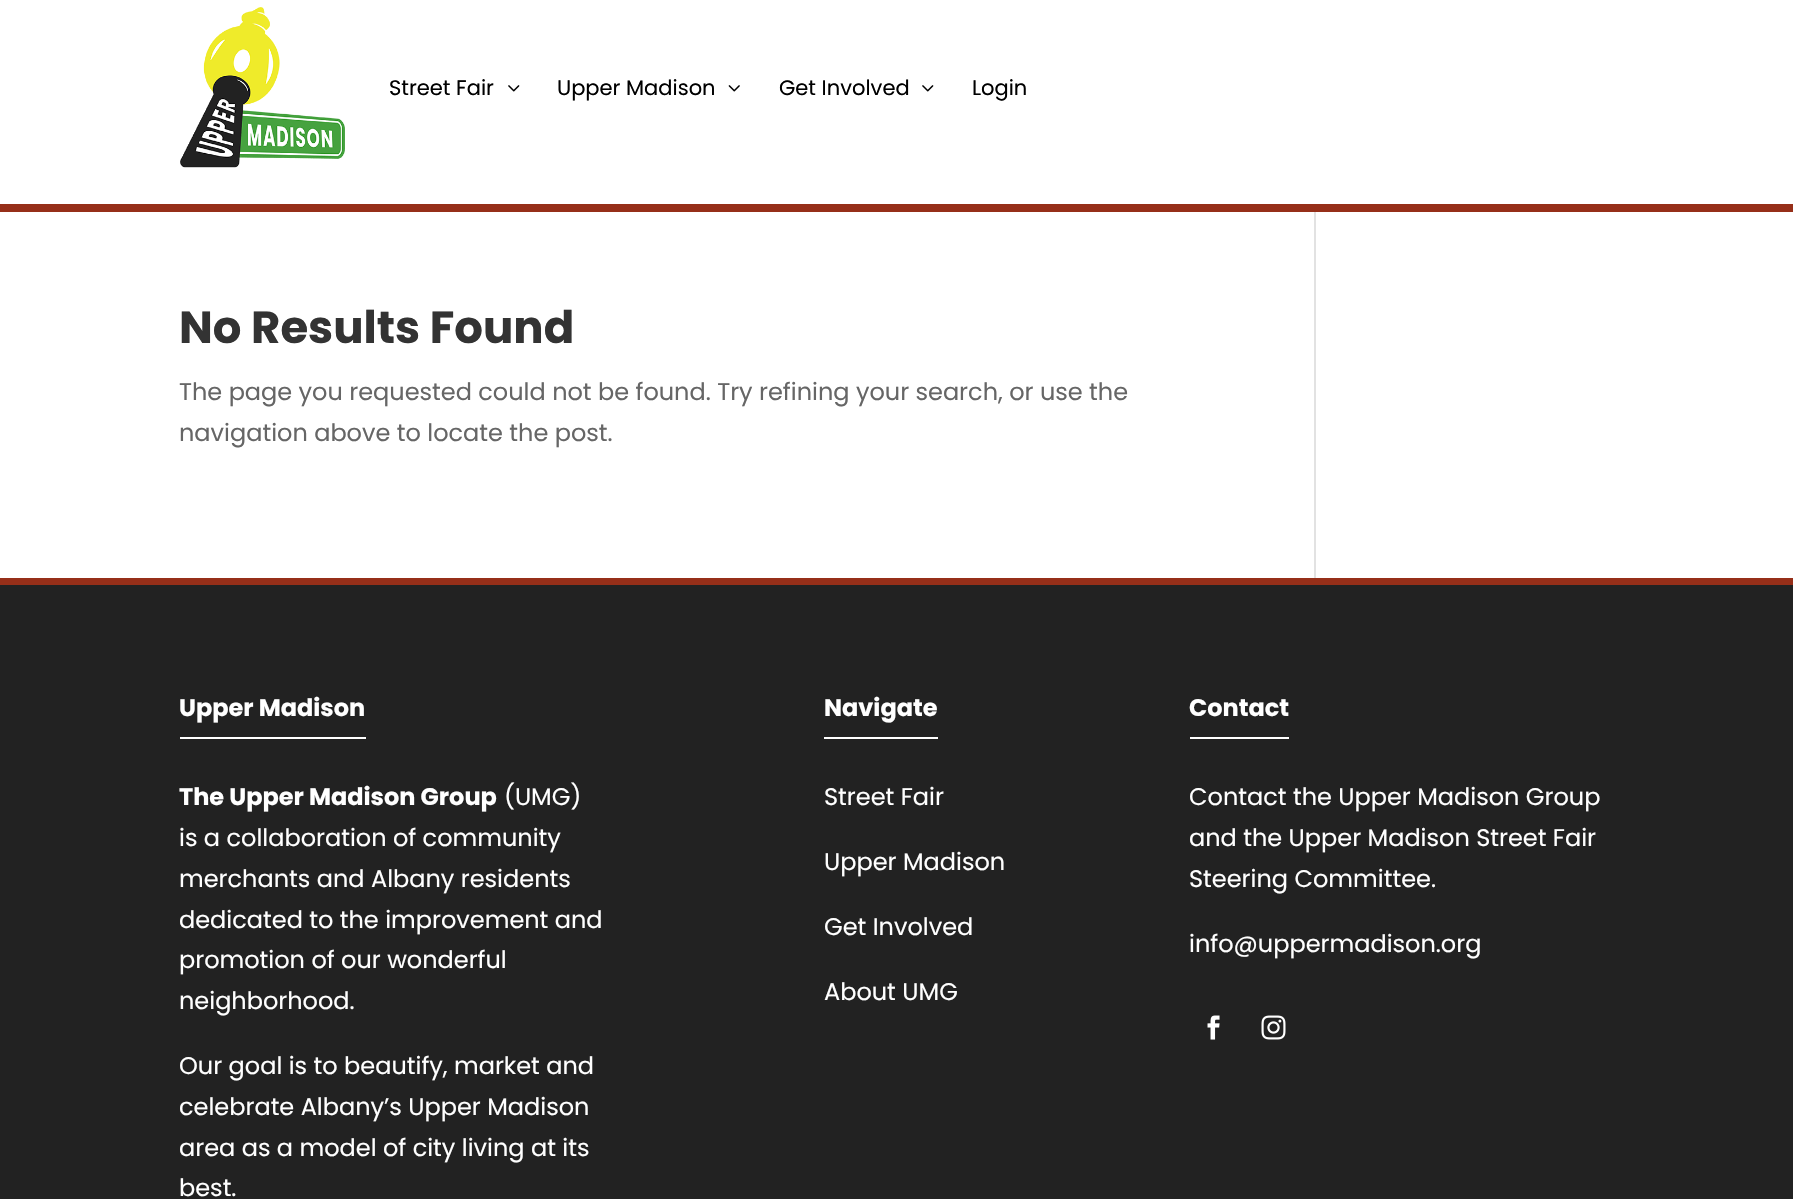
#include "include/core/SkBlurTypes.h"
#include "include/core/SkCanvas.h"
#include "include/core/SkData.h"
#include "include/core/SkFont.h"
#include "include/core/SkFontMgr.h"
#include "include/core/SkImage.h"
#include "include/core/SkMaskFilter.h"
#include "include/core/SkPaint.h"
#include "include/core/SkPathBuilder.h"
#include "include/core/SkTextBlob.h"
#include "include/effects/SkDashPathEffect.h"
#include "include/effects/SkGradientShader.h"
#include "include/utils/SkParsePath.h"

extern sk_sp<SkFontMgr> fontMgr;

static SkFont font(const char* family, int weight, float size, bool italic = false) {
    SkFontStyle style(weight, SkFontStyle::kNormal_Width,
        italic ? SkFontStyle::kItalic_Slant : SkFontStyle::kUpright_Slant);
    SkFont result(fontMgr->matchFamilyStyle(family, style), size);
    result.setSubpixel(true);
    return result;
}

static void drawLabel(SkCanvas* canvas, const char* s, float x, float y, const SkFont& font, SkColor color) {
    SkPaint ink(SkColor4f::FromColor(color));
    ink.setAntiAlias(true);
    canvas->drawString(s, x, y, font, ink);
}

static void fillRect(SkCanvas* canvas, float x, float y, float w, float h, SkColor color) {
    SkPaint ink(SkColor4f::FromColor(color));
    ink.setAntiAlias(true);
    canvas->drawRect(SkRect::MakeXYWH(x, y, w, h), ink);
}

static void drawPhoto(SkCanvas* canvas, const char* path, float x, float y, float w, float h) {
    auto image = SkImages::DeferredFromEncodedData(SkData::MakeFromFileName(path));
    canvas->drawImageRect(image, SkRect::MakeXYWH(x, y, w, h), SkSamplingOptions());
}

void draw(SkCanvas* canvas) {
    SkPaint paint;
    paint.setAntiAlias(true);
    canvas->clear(0xFFFFFFFF);
    fillRect(canvas, 0, 204, 1793, 8, 0xFF962F19);
    drawPhoto(canvas, "assets/img1.png", 180, 7, 165, 161);
    SkFont font1 = font("Poppins", 400, 21);
    drawLabel(canvas, "Street Fair", 389, 95, font1, 0xFF000000);
    drawPhoto(canvas, "assets/img2.png", 508, 85, 12, 7);
    drawLabel(canvas, "Upper Madison", 557, 95, font1, 0xFF000000);
    drawPhoto(canvas, "assets/img3.png", 728, 85, 12, 7);
    drawLabel(canvas, "Get Involved", 779, 95, font1, 0xFF000000);
    drawPhoto(canvas, "assets/img2.png", 922, 85, 12, 7);
    drawLabel(canvas, "Login", 972, 95, font1, 0xFF000000);
    SkFont font2 = font("Poppins", 700, 45);
    drawLabel(canvas, "No Results Found", 179, 343, font2, 0xFF333333);
    SkFont font3 = font("Poppins", 400, 24);
    drawLabel(canvas, "The page you requested could not be found. Try refining your search, or use the", 179, 400, font3, 0xFF666666);
    drawLabel(canvas, "navigation above to locate the post.", 179, 441, font3, 0xFF666666);
    fillRect(canvas, 1314, 212, 2, 366, 0xFFE2E2E2);
    fillRect(canvas, 0, 585, 1793, 614, 0xFF222222);
    fillRect(canvas, 0, 578, 1793, 7, 0xFF962F19);
    SkFont font4 = font("Poppins", 700, 24);
    drawLabel(canvas, "Upper Madison", 179, 716, font4, 0xFFFFFFFF);
    fillRect(canvas, 180, 737, 186, 2, 0xFFFFFFFF);
    drawLabel(canvas, "The Upper Madison Group", 179, 805, font4, 0xFFFFFFFF);
    drawLabel(canvas, "(UMG)", 504, 805, font3, 0xFFFFFFFF);
    drawLabel(canvas, "is a collaboration of community", 179, 846, font3, 0xFFFFFFFF);
    drawLabel(canvas, "merchants and Albany residents", 179, 887, font3, 0xFFFFFFFF);
    drawLabel(canvas, "dedicated to the improvement and", 179, 928, font3, 0xFFFFFFFF);
    drawLabel(canvas, "promotion of our wonderful", 179, 968, font3, 0xFFFFFFFF);
    drawLabel(canvas, "neighborhood.", 179, 1009, font3, 0xFFFFFFFF);
    drawLabel(canvas, "Our goal is to beautify, market and", 179, 1074, font3, 0xFFFFFFFF);
    drawLabel(canvas, "celebrate Albany’s Upper Madison", 179, 1115, font3, 0xFFFFFFFF);
    drawLabel(canvas, "area as a model of city living at its", 179, 1156, font3, 0xFFFFFFFF);
    drawLabel(canvas, "best.", 179, 1196, font3, 0xFFFFFFFF);
    drawLabel(canvas, "Navigate", 824, 716, font4, 0xFFFFFFFF);
    fillRect(canvas, 824, 737, 114, 2, 0xFFFFFFFF);
    drawLabel(canvas, "Street Fair", 824, 805, font3, 0xFFFFFFFF);
    drawLabel(canvas, "Upper Madison", 824, 870, font3, 0xFFFFFFFF);
    drawLabel(canvas, "Get Involved", 824, 935, font3, 0xFFFFFFFF);
    drawLabel(canvas, "About UMG", 824, 1000, font3, 0xFFFFFFFF);
    drawLabel(canvas, "Contact", 1189, 716, font4, 0xFFFFFFFF);
    fillRect(canvas, 1190, 737, 99, 2, 0xFFFFFFFF);
    drawLabel(canvas, "Contact the Upper Madison Group", 1189, 805, font3, 0xFFFFFFFF);
    drawLabel(canvas, "and the Upper Madison Street Fair", 1189, 846, font3, 0xFFFFFFFF);
    drawLabel(canvas, "Steering Committee.", 1189, 887, font3, 0xFFFFFFFF);
    drawLabel(canvas, "info@uppermadison.org", 1189, 952, font3, 0xFFFFFFFF);
    drawPhoto(canvas, "assets/img4.png", 1207, 1015, 13, 25);
    drawPhoto(canvas, "assets/img5.png", 1261, 1015, 25, 25);
}
